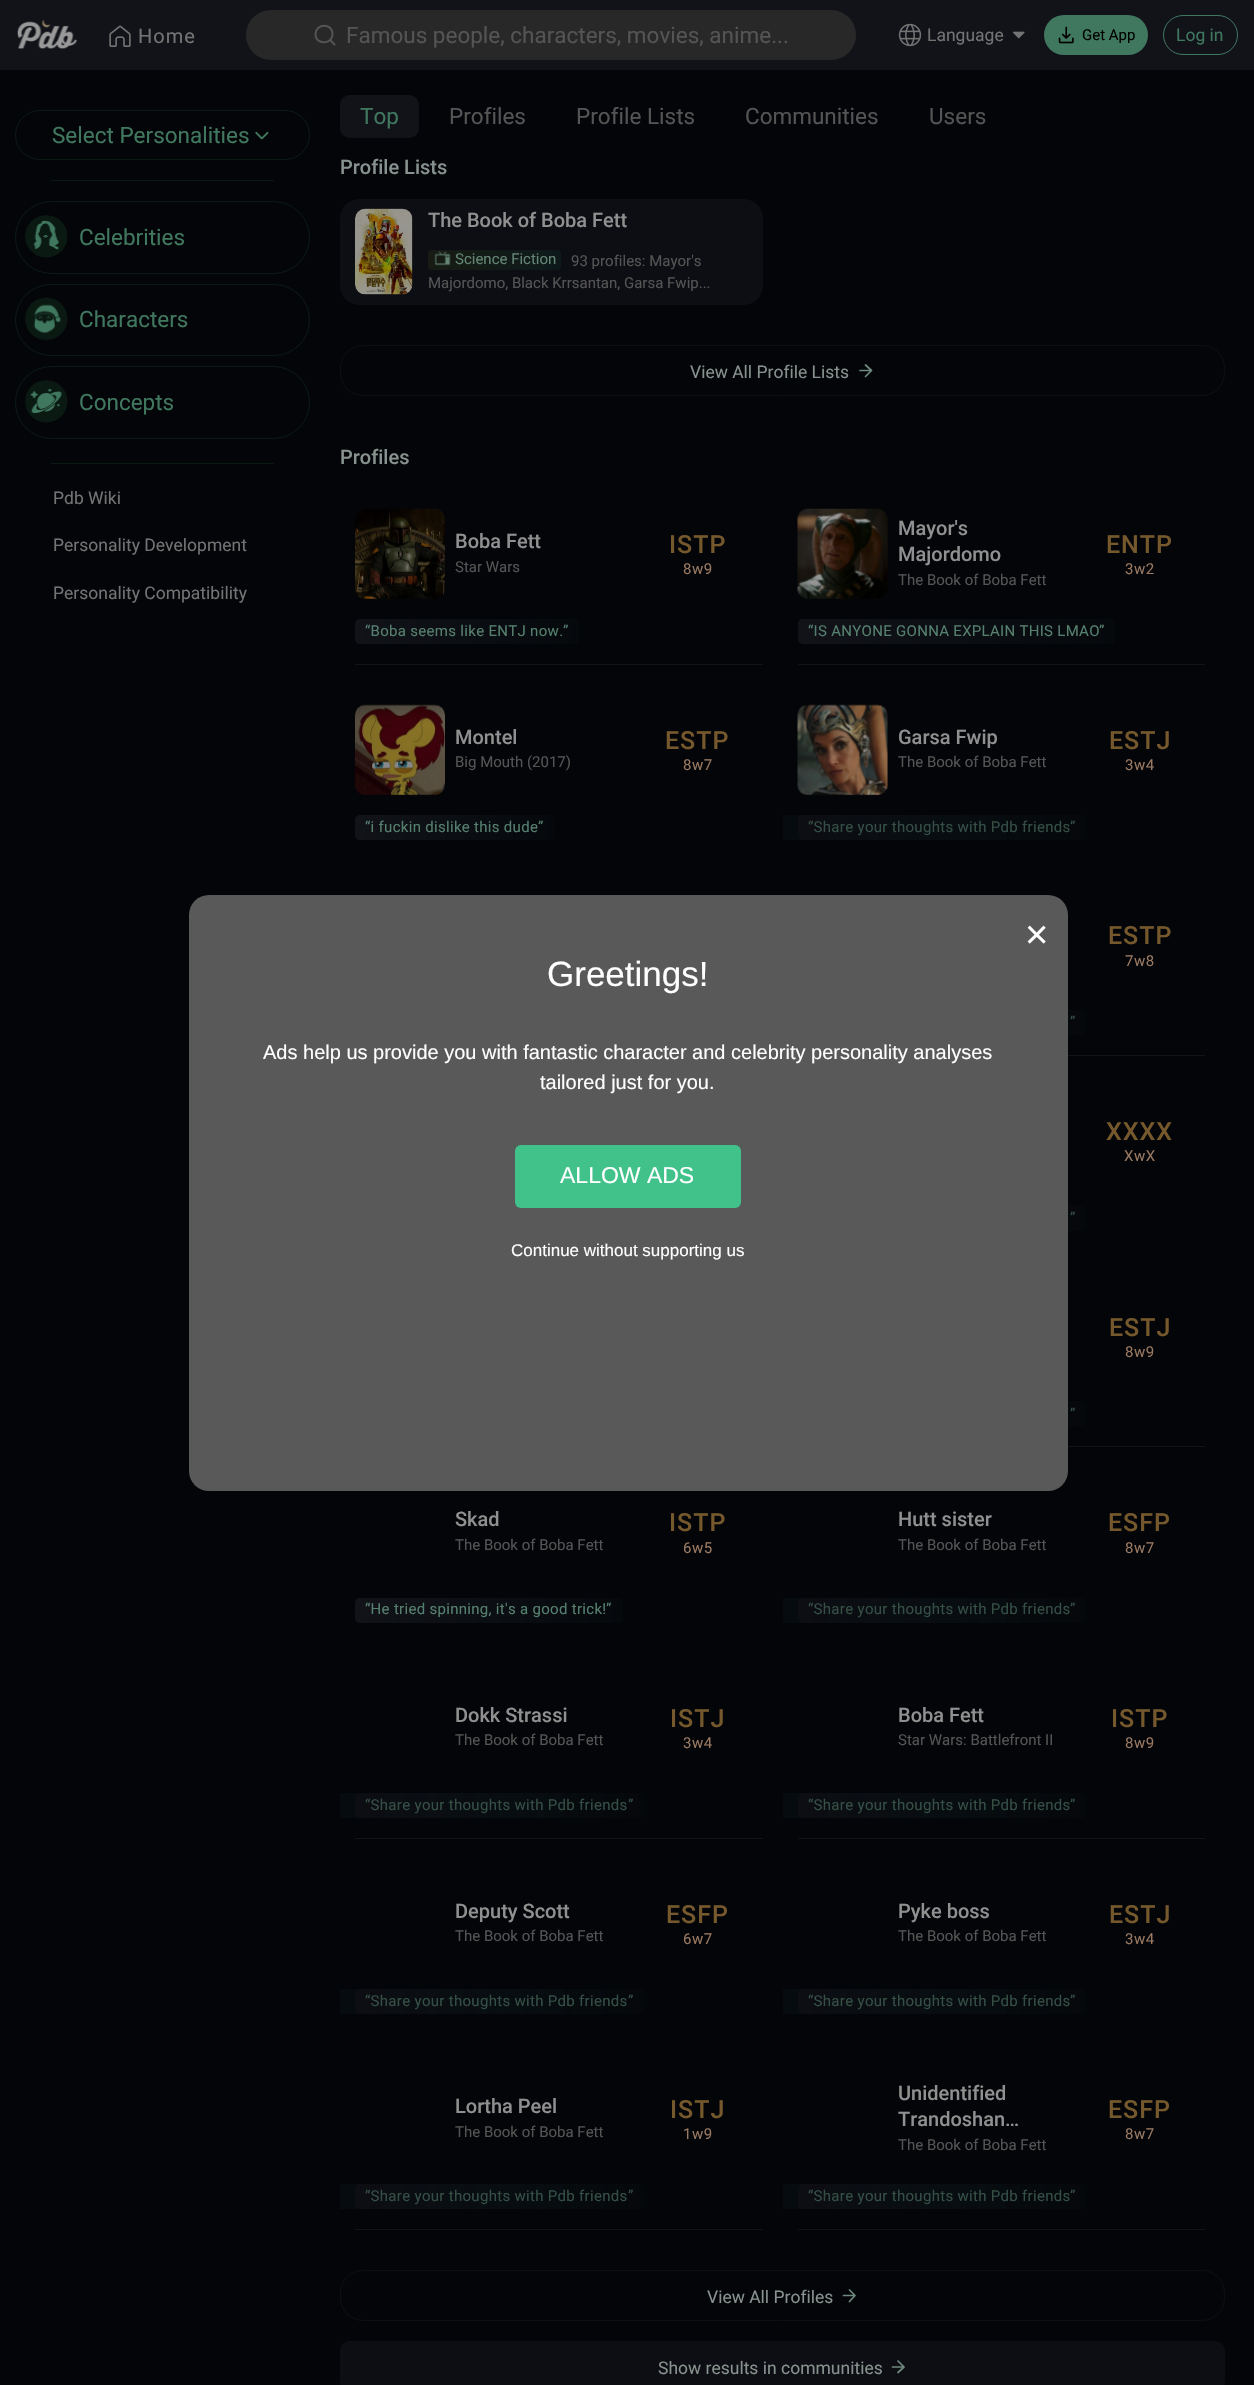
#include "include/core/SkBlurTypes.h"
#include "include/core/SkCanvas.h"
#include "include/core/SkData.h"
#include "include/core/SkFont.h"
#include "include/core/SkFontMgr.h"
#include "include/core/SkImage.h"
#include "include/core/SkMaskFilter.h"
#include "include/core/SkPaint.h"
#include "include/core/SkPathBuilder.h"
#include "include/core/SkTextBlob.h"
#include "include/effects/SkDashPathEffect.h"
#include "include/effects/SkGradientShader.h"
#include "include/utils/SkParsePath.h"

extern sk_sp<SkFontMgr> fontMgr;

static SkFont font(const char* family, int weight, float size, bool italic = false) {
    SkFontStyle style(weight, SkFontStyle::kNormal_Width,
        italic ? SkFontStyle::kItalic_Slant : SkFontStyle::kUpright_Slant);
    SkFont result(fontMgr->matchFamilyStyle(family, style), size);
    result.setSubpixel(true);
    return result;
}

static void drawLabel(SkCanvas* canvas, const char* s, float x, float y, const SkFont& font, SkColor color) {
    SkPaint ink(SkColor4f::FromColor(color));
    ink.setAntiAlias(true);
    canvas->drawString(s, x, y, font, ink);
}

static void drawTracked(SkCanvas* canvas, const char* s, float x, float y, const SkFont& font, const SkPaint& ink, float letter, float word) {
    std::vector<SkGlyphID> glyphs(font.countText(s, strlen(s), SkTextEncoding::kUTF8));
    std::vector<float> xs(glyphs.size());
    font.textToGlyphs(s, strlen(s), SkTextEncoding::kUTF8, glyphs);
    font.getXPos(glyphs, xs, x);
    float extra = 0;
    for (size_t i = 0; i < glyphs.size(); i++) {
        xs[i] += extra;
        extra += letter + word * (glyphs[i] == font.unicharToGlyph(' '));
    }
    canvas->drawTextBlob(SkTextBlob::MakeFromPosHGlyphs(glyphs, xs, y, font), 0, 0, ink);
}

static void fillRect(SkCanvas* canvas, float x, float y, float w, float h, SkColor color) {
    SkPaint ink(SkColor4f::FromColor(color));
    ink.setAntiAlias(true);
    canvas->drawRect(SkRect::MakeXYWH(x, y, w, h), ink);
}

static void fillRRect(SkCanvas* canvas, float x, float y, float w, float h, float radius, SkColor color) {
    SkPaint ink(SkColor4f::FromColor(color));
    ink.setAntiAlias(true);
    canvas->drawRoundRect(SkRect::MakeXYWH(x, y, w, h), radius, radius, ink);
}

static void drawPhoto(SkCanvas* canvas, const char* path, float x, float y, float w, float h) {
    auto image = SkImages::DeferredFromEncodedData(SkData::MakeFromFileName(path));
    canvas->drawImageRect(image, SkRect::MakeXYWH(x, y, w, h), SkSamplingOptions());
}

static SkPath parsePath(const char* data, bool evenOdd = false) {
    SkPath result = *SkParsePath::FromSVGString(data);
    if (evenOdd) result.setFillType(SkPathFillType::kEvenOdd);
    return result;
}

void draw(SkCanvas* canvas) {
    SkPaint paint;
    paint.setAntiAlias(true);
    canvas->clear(0xFF040508);
    fillRect(canvas, 0, 0, 1254, 70, 0xFF111319);
    drawPhoto(canvas, "assets/img1.png", 17, 19, 61, 30);
    drawPhoto(canvas, "assets/img2.png", 109, 25, 22, 22);
    SkFont font1 = font("Roboto", 400, 20);
    paint.setColor(0xFF737373);
    drawTracked(canvas, "Home", 138, 43, font1, paint, 1, 0);
    fillRRect(canvas, 246, 10, 610, 50, 25, 0xFF282828);
    paint.setStroke(true);
    paint.setStrokeWidth(1.9f);
    paint.setStrokeCap(SkPaint::kRound_Cap);
    paint.setStrokeJoin(SkPaint::kRound_Join);
    paint.setColor(0xFF545454);
    canvas->drawPath(parsePath("M334.5 44.5L330 40M332.5 34C332.5 45 315 45 315.5 34C316 23 332.5 23 332.5 34Z"), paint);
    SkFont font2 = font("Roboto", 400, 22.5f);
    drawLabel(canvas, "Famous people, characters, movies, anime...", 346, 43, font2, 0xFF545454);
    drawPhoto(canvas, "assets/img3.png", 898, 23, 24, 24);
    SkFont font3 = font("Roboto", 400, 17.5f);
    drawLabel(canvas, "Language", 927, 41, font3, 0xFF737373);
    drawPhoto(canvas, "assets/img4.png", 1013, 31, 12, 8);
    fillRRect(canvas, 1044, 15, 104, 40, 20, 0xFF40775F);
    drawPhoto(canvas, "assets/img5.png", 1058, 26, 16, 18);
    SkFont font4 = font("Roboto", 400, 15);
    drawLabel(canvas, "Get App", 1082, 40, font4, 0xFF000000);
    paint.setStrokeWidth(1);
    paint.setStrokeCap(SkPaint::kButt_Cap);
    paint.setStrokeJoin(SkPaint::kMiter_Join);
    paint.setColor(0xFF40775F);
    canvas->drawRoundRect(SkRect::MakeXYWH(1163.5f, 15.5f, 74, 39), 19.5f, 19.5f, paint);
    drawLabel(canvas, "Log in", 1176, 41, font3, 0xFF40775F);
    paint.setColor(0xFF0A1A13);
    canvas->drawRoundRect(SkRect::MakeXYWH(15.5f, 110.5f, 294, 49), 24.5f, 24.5f, paint);
    drawLabel(canvas, "Select Personalities", 52, 143, font2, 0xFF40775F);
    drawPhoto(canvas, "assets/img6.png", 255, 131, 14, 9);
    fillRect(canvas, 51, 180, 223, 1, 0xFF0A1A13);
    canvas->drawRoundRect(SkRect::MakeXYWH(15.5f, 201.5f, 294, 72), 36, 36, paint);
    drawPhoto(canvas, "assets/img7.png", 24, 215, 44, 43);
    drawLabel(canvas, "Celebrities", 79, 245, font2, 0xFF40775F);
    canvas->drawRoundRect(SkRect::MakeXYWH(15.5f, 284.5f, 294, 71), 35.5f, 35.5f, paint);
    drawPhoto(canvas, "assets/img8.png", 24, 297, 44, 44);
    drawLabel(canvas, "Characters", 79, 327, font2, 0xFF40775F);
    canvas->drawRoundRect(SkRect::MakeXYWH(15.5f, 366.5f, 294, 72), 36, 36, paint);
    drawPhoto(canvas, "assets/img9.png", 24, 380, 44, 43);
    drawLabel(canvas, "Concepts", 79, 410, font2, 0xFF40775F);
    fillRect(canvas, 51, 463, 223, 1, 0xFF0A1A13);
    drawLabel(canvas, "Pdb Wiki", 53, 504, font3, 0xFF737373);
    drawLabel(canvas, "Personality Development", 53, 551, font3, 0xFF737373);
    drawLabel(canvas, "Personality Compatibility", 53, 599, font3, 0xFF737373);
    fillRRect(canvas, 340, 95, 79, 43, 10, 0xFF111319);
    drawLabel(canvas, "Top", 360, 124, font2, 0xFF40775F);
    drawLabel(canvas, "Profiles", 449, 124, font2, 0xFF545454);
    drawLabel(canvas, "Profile Lists", 576, 124, font2, 0xFF545454);
    drawLabel(canvas, "Communities", 745, 124, font2, 0xFF545454);
    drawLabel(canvas, "Users", 929, 124, font2, 0xFF545454);
    SkFont font5 = font("Roboto", 500, 20);
    drawLabel(canvas, "Profile Lists", 340, 174, font5, 0xFF87928E);
    fillRRect(canvas, 340, 199, 423, 106, 20, 0xFF0D0E13);
    drawPhoto(canvas, "assets/img10.png", 355, 208, 58, 87);
    drawLabel(canvas, "The Book of Boba Fett", 428, 227, font5, 0xFF909090);
    paint.setStroke(false);
    {
        const SkColor colors[] = {0xFF171B13, 0xFF0E1A1A};
        const float stops[] = {0, 0.93f};
        const SkPoint ends[] = {{427, 254}, {562, 266}};
        paint.setShader(SkGradientShader::MakeLinear(ends, colors, stops, 2, SkTileMode::kClamp));
        paint.setAlpha(255);
    }
    canvas->drawRoundRect(SkRect::MakeXYWH(428, 250, 133, 20), 4, 4, paint);
    drawPhoto(canvas, "assets/img11.png", 434, 251, 17, 15);
    drawLabel(canvas, "Science Fiction", 455, 264, font4, 0xFF648576);
    drawLabel(canvas, "93 profiles: Mayor's", 571, 266, font4, 0xFF545454);
    drawLabel(canvas, "Majordomo, Black Krrsantan, Garsa Fwip...", 428, 288, font4, 0xFF545454);
    paint.setStroke(true);
    paint.setShader(nullptr);
    paint.setColor(0xFF0D0E13);
    canvas->drawRoundRect(SkRect::MakeXYWH(340.5f, 345.5f, 884, 50), 22.5f, 22.5f, paint);
    drawLabel(canvas, "View All Profile Lists", 690, 378, font3, 0xFF87928E);
    paint.setStrokeWidth(1.7f);
    paint.setStrokeCap(SkPaint::kRound_Cap);
    paint.setStrokeJoin(SkPaint::kRound_Join);
    paint.setColor(0xFF6D887C);
    canvas->drawPath(parsePath("M871.5 370.5H860M865.5 376.5L871.5 370.5L865.5 365"), paint);
    drawLabel(canvas, "Profiles", 340, 464, font5, 0xFF87928E);
    drawPhoto(canvas, "assets/img12.png", 355, 508, 90, 91);
    drawLabel(canvas, "Boba Fett", 455, 548, font5, 0xFF909090);
    drawLabel(canvas, "Star Wars", 455, 572, font4, 0xFF545454);
    SkFont font6 = font("Roboto", 500, 25);
    paint.setStroke(false);
    paint.setColor(0xFF75582C);
    drawTracked(canvas, "ISTP", 669, 553, font6, paint, 1, 0);
    paint.setColor(0xFF997962);
    drawTracked(canvas, "8w9", 683, 574, font4, paint, 0.5f, 0);
    {
        const SkColor colors[] = {0xFF111319, 0xFF05090C};
        const float stops[] = {0, 1};
        const SkPoint ends[] = {{355, 631}, {579, 631}};
        paint.setShader(SkGradientShader::MakeLinear(ends, colors, stops, 2, SkTileMode::kClamp));
        paint.setAlpha(255);
    }
    canvas->drawRoundRect(SkRect::MakeXYWH(355, 619, 224, 25), 5, 5, paint);
    paint.setShader(nullptr);
    paint.setColor(0xFF56806E);
    drawTracked(canvas, "“Boba seems like ENTJ now.", 365, 636, font4, paint, 0.3f, 0);
    drawTracked(canvas, "”", 563, 636, font4, paint, 0.3f, 0);
    fillRect(canvas, 355, 664, 408, 1, 0xFF111319);
    drawPhoto(canvas, "assets/img13.png", 797, 508, 91, 91);
    drawLabel(canvas, "Mayor's", 898, 535, font5, 0xFF909090);
    drawLabel(canvas, "Majordomo", 898, 561, font5, 0xFF909090);
    drawLabel(canvas, "The Book of Boba Fett", 898, 585, font4, 0xFF545454);
    paint.setColor(0xFF75582C);
    drawTracked(canvas, "ENTP", 1106, 553, font6, paint, 1, 0);
    paint.setColor(0xFF997962);
    drawTracked(canvas, "3w2", 1125, 574, font4, paint, 0.5f, 0);
    {
        const SkColor colors[] = {0xFF111319, 0xFF05090C};
        const float stops[] = {0, 1};
        const SkPoint ends[] = {{798, 631}, {1115, 631}};
        paint.setShader(SkGradientShader::MakeLinear(ends, colors, stops, 2, SkTileMode::kClamp));
        paint.setAlpha(255);
    }
    canvas->drawRoundRect(SkRect::MakeXYWH(798, 619, 317, 25), 5, 5, paint);
    paint.setShader(nullptr);
    paint.setColor(0xFF56806E);
    drawTracked(canvas, "“IS ANYONE GONNA EXPLAIN THIS LMAO", 808, 636, font4, paint, 0.3f, 0);
    drawTracked(canvas, "”", 1099, 636, font4, paint, 0.3f, 0);
    fillRect(canvas, 798, 664, 407, 1, 0xFF111319);
    drawPhoto(canvas, "assets/img14.png", 355, 704, 90, 92);
    drawLabel(canvas, "Montel", 455, 744, font5, 0xFF909090);
    drawLabel(canvas, "Big Mouth (2017)", 455, 767, font4, 0xFF545454);
    paint.setColor(0xFF75582C);
    drawTracked(canvas, "ESTP", 665, 749, font6, paint, 1, 0);
    paint.setColor(0xFF997962);
    drawTracked(canvas, "8w7", 683, 770, font4, paint, 0.5f, 0);
    {
        const SkColor colors[] = {0xFF111319, 0xFF05090C};
        const float stops[] = {0, 1};
        const SkPoint ends[] = {{355, 828}, {554, 828}};
        paint.setShader(SkGradientShader::MakeLinear(ends, colors, stops, 2, SkTileMode::kClamp));
        paint.setAlpha(255);
    }
    canvas->drawRoundRect(SkRect::MakeXYWH(355, 815, 199, 25), 5, 5, paint);
    paint.setShader(nullptr);
    paint.setColor(0xFF56806E);
    drawTracked(canvas, "“i fuckin dislike this dude", 365, 832, font4, paint, 0.3f, 0);
    drawTracked(canvas, "”", 538, 832, font4, paint, 0.3f, 0);
    drawPhoto(canvas, "assets/img15.png", 797, 704, 91, 92);
    drawLabel(canvas, "Garsa Fwip", 898, 744, font5, 0xFF909090);
    drawLabel(canvas, "The Book of Boba Fett", 898, 767, font4, 0xFF545454);
    paint.setColor(0xFF75582C);
    drawTracked(canvas, "ESTJ", 1109, 749, font6, paint, 1, 0);
    paint.setColor(0xFF997962);
    drawTracked(canvas, "3w4", 1125, 770, font4, paint, 0.5f, 0);
    {
        const SkColor colors[] = {0xFF050B0E, 0xFF040609};
        const float stops[] = {0, 1};
        const SkPoint ends[] = {{783, 828}, {1101, 828}};
        paint.setShader(SkGradientShader::MakeLinear(ends, colors, stops, 2, SkTileMode::kClamp));
        paint.setAlpha(255);
    }
    canvas->drawRect(SkRect::MakeXYWH(783, 815, 223, 25), paint);
    {
        const SkColor colors[] = {0xFF0C0D12, 0x33071215};
        const float stops[] = {0, 1};
        const SkPoint ends[] = {{798, 828}, {1086, 828}};
        paint.setShader(SkGradientShader::MakeLinear(ends, colors, stops, 2, SkTileMode::kClamp));
        paint.setAlpha(255);
    }
    canvas->drawRoundRect(SkRect::MakeXYWH(798, 815, 288, 25), 5, 5, paint);
    paint.setShader(nullptr);
    paint.setColor(0xFF354F45);
    drawTracked(canvas, "“Share your thoughts with Pdb friends", 808, 832, font4, paint, 0.3f, 0);
    drawTracked(canvas, "”", 1070, 832, font4, paint, 0.3f, 0);
    paint.setColor(0xFF75582C);
    drawTracked(canvas, "ESTP", 1108, 944, font6, paint, 1, 0);
    paint.setColor(0xFF997962);
    drawTracked(canvas, "7w8", 1125, 966, font4, paint, 0.5f, 0);
    {
        const SkColor colors[] = {0xFF0C0D12, 0x33071215};
        const float stops[] = {0, 1};
        const SkPoint ends[] = {{798, 1023}, {1086, 1023}};
        paint.setShader(SkGradientShader::MakeLinear(ends, colors, stops, 2, SkTileMode::kClamp));
        paint.setAlpha(255);
    }
    canvas->drawRoundRect(SkRect::MakeXYWH(798, 1010, 288, 25), 5, 5, paint);
    paint.setShader(nullptr);
    paint.setColor(0xFF354F45);
    drawTracked(canvas, "”", 1070, 1027, font4, paint, 0.3f, 0);
    fillRect(canvas, 1068, 1055, 137, 1, 0xFF111319);
    paint.setColor(0xFF75582C);
    drawTracked(canvas, "XXXX", 1106, 1140, font6, paint, 1, 0);
    paint.setColor(0xFF997962);
    drawTracked(canvas, "XwX", 1124, 1161, font4, paint, 0.5f, 0);
    {
        const SkColor colors[] = {0xFF0C0D12, 0x33071215};
        const float stops[] = {0, 1};
        const SkPoint ends[] = {{798, 1219}, {1086, 1219}};
        paint.setShader(SkGradientShader::MakeLinear(ends, colors, stops, 2, SkTileMode::kClamp));
        paint.setAlpha(255);
    }
    canvas->drawRoundRect(SkRect::MakeXYWH(798, 1206, 288, 25), 5, 5, paint);
    paint.setShader(nullptr);
    paint.setColor(0xFF354F45);
    drawTracked(canvas, "”", 1070, 1223, font4, paint, 0.3f, 0);
    paint.setColor(0xFF75582C);
    drawTracked(canvas, "ESTJ", 1109, 1336, font6, paint, 1, 0);
    paint.setColor(0xFF997962);
    drawTracked(canvas, "8w9", 1125, 1357, font4, paint, 0.5f, 0);
    {
        const SkColor colors[] = {0xFF0C0D12, 0x33071215};
        const float stops[] = {0, 1};
        const SkPoint ends[] = {{798, 1414}, {1086, 1414}};
        paint.setShader(SkGradientShader::MakeLinear(ends, colors, stops, 2, SkTileMode::kClamp));
        paint.setAlpha(255);
    }
    canvas->drawRoundRect(SkRect::MakeXYWH(798, 1401, 288, 25), 5, 5, paint);
    paint.setShader(nullptr);
    paint.setColor(0xFF354F45);
    drawTracked(canvas, "”", 1070, 1419, font4, paint, 0.3f, 0);
    fillRect(canvas, 1068, 1446, 137, 1, 0xFF111319);
    drawLabel(canvas, "Skad", 455, 1526, font5, 0xFF909090);
    drawLabel(canvas, "The Book of Boba Fett", 455, 1550, font4, 0xFF545454);
    paint.setColor(0xFF75582C);
    drawTracked(canvas, "ISTP", 669, 1531, font6, paint, 1, 0);
    paint.setColor(0xFF997962);
    drawTracked(canvas, "6w5", 683, 1553, font4, paint, 0.5f, 0);
    {
        const SkColor colors[] = {0xFF111319, 0xFF05090C};
        const float stops[] = {0, 1};
        const SkPoint ends[] = {{355, 1610}, {623, 1610}};
        paint.setShader(SkGradientShader::MakeLinear(ends, colors, stops, 2, SkTileMode::kClamp));
        paint.setAlpha(255);
    }
    canvas->drawRoundRect(SkRect::MakeXYWH(355, 1598, 268, 25), 5, 5, paint);
    paint.setShader(nullptr);
    paint.setColor(0xFF56806E);
    drawTracked(canvas, "“He tried spinning, it's a good trick!", 365, 1614, font4, paint, 0.3f, 0);
    drawTracked(canvas, "”", 606, 1614, font4, paint, 0.3f, 0);
    drawLabel(canvas, "Hutt sister", 898, 1526, font5, 0xFF909090);
    drawLabel(canvas, "The Book of Boba Fett", 898, 1550, font4, 0xFF545454);
    paint.setColor(0xFF75582C);
    drawTracked(canvas, "ESFP", 1108, 1531, font6, paint, 1, 0);
    paint.setColor(0xFF997962);
    drawTracked(canvas, "8w7", 1125, 1553, font4, paint, 0.5f, 0);
    {
        const SkColor colors[] = {0xFF050B0E, 0xFF040609};
        const float stops[] = {0, 1};
        const SkPoint ends[] = {{783, 1610}, {1101, 1610}};
        paint.setShader(SkGradientShader::MakeLinear(ends, colors, stops, 2, SkTileMode::kClamp));
        paint.setAlpha(255);
    }
    canvas->drawRect(SkRect::MakeXYWH(783, 1598, 223, 25), paint);
    {
        const SkColor colors[] = {0xFF0C0D12, 0x33071215};
        const float stops[] = {0, 1};
        const SkPoint ends[] = {{798, 1610}, {1086, 1610}};
        paint.setShader(SkGradientShader::MakeLinear(ends, colors, stops, 2, SkTileMode::kClamp));
        paint.setAlpha(255);
    }
    canvas->drawRoundRect(SkRect::MakeXYWH(798, 1598, 288, 25), 5, 5, paint);
    paint.setShader(nullptr);
    paint.setColor(0xFF354F45);
    drawTracked(canvas, "“Share your thoughts with Pdb friends", 808, 1614, font4, paint, 0.3f, 0);
    drawTracked(canvas, "”", 1070, 1614, font4, paint, 0.3f, 0);
    drawLabel(canvas, "Dokk Strassi", 455, 1722, font5, 0xFF909090);
    drawLabel(canvas, "The Book of Boba Fett", 455, 1745, font4, 0xFF545454);
    paint.setColor(0xFF75582C);
    drawTracked(canvas, "ISTJ", 670, 1727, font6, paint, 1, 0);
    paint.setColor(0xFF997962);
    drawTracked(canvas, "3w4", 683, 1748, font4, paint, 0.5f, 0);
    {
        const SkColor colors[] = {0xFF050B0E, 0xFF040609};
        const float stops[] = {0, 1};
        const SkPoint ends[] = {{340, 1805}, {659, 1805}};
        paint.setShader(SkGradientShader::MakeLinear(ends, colors, stops, 2, SkTileMode::kClamp));
        paint.setAlpha(255);
    }
    canvas->drawRect(SkRect::MakeXYWH(340, 1793, 223, 25), paint);
    {
        const SkColor colors[] = {0xFF0C0D12, 0x33071215};
        const float stops[] = {0, 1};
        const SkPoint ends[] = {{355, 1805}, {644, 1805}};
        paint.setShader(SkGradientShader::MakeLinear(ends, colors, stops, 2, SkTileMode::kClamp));
        paint.setAlpha(255);
    }
    canvas->drawRoundRect(SkRect::MakeXYWH(355, 1793, 289, 25), 5, 5, paint);
    paint.setShader(nullptr);
    paint.setColor(0xFF354F45);
    drawTracked(canvas, "“Share your thoughts with Pdb friends", 365, 1810, font4, paint, 0.3f, 0);
    drawTracked(canvas, "”", 628, 1810, font4, paint, 0.3f, 0);
    fillRect(canvas, 355, 1838, 408, 1, 0xFF111319);
    drawLabel(canvas, "Boba Fett", 898, 1722, font5, 0xFF909090);
    drawLabel(canvas, "Star Wars: Battlefront II", 898, 1745, font4, 0xFF545454);
    paint.setColor(0xFF75582C);
    drawTracked(canvas, "ISTP", 1111, 1727, font6, paint, 1, 0);
    paint.setColor(0xFF997962);
    drawTracked(canvas, "8w9", 1125, 1748, font4, paint, 0.5f, 0);
    {
        const SkColor colors[] = {0xFF050B0E, 0xFF040609};
        const float stops[] = {0, 1};
        const SkPoint ends[] = {{783, 1805}, {1101, 1805}};
        paint.setShader(SkGradientShader::MakeLinear(ends, colors, stops, 2, SkTileMode::kClamp));
        paint.setAlpha(255);
    }
    canvas->drawRect(SkRect::MakeXYWH(783, 1793, 223, 25), paint);
    {
        const SkColor colors[] = {0xFF0C0D12, 0x33071215};
        const float stops[] = {0, 1};
        const SkPoint ends[] = {{798, 1805}, {1086, 1805}};
        paint.setShader(SkGradientShader::MakeLinear(ends, colors, stops, 2, SkTileMode::kClamp));
        paint.setAlpha(255);
    }
    canvas->drawRoundRect(SkRect::MakeXYWH(798, 1793, 288, 25), 5, 5, paint);
    paint.setShader(nullptr);
    paint.setColor(0xFF354F45);
    drawTracked(canvas, "“Share your thoughts with Pdb friends", 808, 1810, font4, paint, 0.3f, 0);
    drawTracked(canvas, "”", 1070, 1810, font4, paint, 0.3f, 0);
    fillRect(canvas, 798, 1838, 407, 1, 0xFF111319);
    drawLabel(canvas, "Deputy Scott", 455, 1918, font5, 0xFF909090);
    drawLabel(canvas, "The Book of Boba Fett", 455, 1941, font4, 0xFF545454);
    paint.setColor(0xFF75582C);
    drawTracked(canvas, "ESFP", 666, 1923, font6, paint, 1, 0);
    paint.setColor(0xFF997962);
    drawTracked(canvas, "6w7", 683, 1944, font4, paint, 0.5f, 0);
    {
        const SkColor colors[] = {0xFF050B0E, 0xFF040609};
        const float stops[] = {0, 1};
        const SkPoint ends[] = {{340, 2001}, {659, 2001}};
        paint.setShader(SkGradientShader::MakeLinear(ends, colors, stops, 2, SkTileMode::kClamp));
        paint.setAlpha(255);
    }
    canvas->drawRect(SkRect::MakeXYWH(340, 1989, 223, 25), paint);
    {
        const SkColor colors[] = {0xFF0C0D12, 0x33071215};
        const float stops[] = {0, 1};
        const SkPoint ends[] = {{355, 2001}, {644, 2001}};
        paint.setShader(SkGradientShader::MakeLinear(ends, colors, stops, 2, SkTileMode::kClamp));
        paint.setAlpha(255);
    }
    canvas->drawRoundRect(SkRect::MakeXYWH(355, 1989, 289, 25), 5, 5, paint);
    paint.setShader(nullptr);
    paint.setColor(0xFF354F45);
    drawTracked(canvas, "“Share your thoughts with Pdb friends", 365, 2006, font4, paint, 0.3f, 0);
    drawTracked(canvas, "”", 628, 2006, font4, paint, 0.3f, 0);
    drawLabel(canvas, "Pyke boss", 898, 1918, font5, 0xFF909090);
    drawLabel(canvas, "The Book of Boba Fett", 898, 1941, font4, 0xFF545454);
    paint.setColor(0xFF75582C);
    drawTracked(canvas, "ESTJ", 1109, 1923, font6, paint, 1, 0);
    paint.setColor(0xFF997962);
    drawTracked(canvas, "3w4", 1125, 1944, font4, paint, 0.5f, 0);
    {
        const SkColor colors[] = {0xFF050B0E, 0xFF040609};
        const float stops[] = {0, 1};
        const SkPoint ends[] = {{783, 2001}, {1101, 2001}};
        paint.setShader(SkGradientShader::MakeLinear(ends, colors, stops, 2, SkTileMode::kClamp));
        paint.setAlpha(255);
    }
    canvas->drawRect(SkRect::MakeXYWH(783, 1989, 223, 25), paint);
    {
        const SkColor colors[] = {0xFF0C0D12, 0x33071215};
        const float stops[] = {0, 1};
        const SkPoint ends[] = {{798, 2001}, {1086, 2001}};
        paint.setShader(SkGradientShader::MakeLinear(ends, colors, stops, 2, SkTileMode::kClamp));
        paint.setAlpha(255);
    }
    canvas->drawRoundRect(SkRect::MakeXYWH(798, 1989, 288, 25), 5, 5, paint);
    paint.setShader(nullptr);
    paint.setColor(0xFF354F45);
    drawTracked(canvas, "“Share your thoughts with Pdb friends", 808, 2006, font4, paint, 0.3f, 0);
    drawTracked(canvas, "”", 1070, 2006, font4, paint, 0.3f, 0);
    drawLabel(canvas, "Lortha Peel", 455, 2113, font5, 0xFF909090);
    drawLabel(canvas, "The Book of Boba Fett", 455, 2137, font4, 0xFF545454);
    paint.setColor(0xFF75582C);
    drawTracked(canvas, "ISTJ", 670, 2118, font6, paint, 1, 0);
    paint.setColor(0xFF997962);
    drawTracked(canvas, "1w9", 683, 2139, font4, paint, 0.5f, 0);
    {
        const SkColor colors[] = {0xFF050B0E, 0xFF040609};
        const float stops[] = {0, 1};
        const SkPoint ends[] = {{340, 2196}, {659, 2196}};
        paint.setShader(SkGradientShader::MakeLinear(ends, colors, stops, 2, SkTileMode::kClamp));
        paint.setAlpha(255);
    }
    canvas->drawRect(SkRect::MakeXYWH(340, 2184, 223, 25), paint);
    {
        const SkColor colors[] = {0xFF0C0D12, 0x33071215};
        const float stops[] = {0, 1};
        const SkPoint ends[] = {{355, 2196}, {644, 2196}};
        paint.setShader(SkGradientShader::MakeLinear(ends, colors, stops, 2, SkTileMode::kClamp));
        paint.setAlpha(255);
    }
    canvas->drawRoundRect(SkRect::MakeXYWH(355, 2184, 289, 25), 5, 5, paint);
    paint.setShader(nullptr);
    paint.setColor(0xFF354F45);
    drawTracked(canvas, "“Share your thoughts with Pdb friends", 365, 2201, font4, paint, 0.3f, 0);
    drawTracked(canvas, "”", 628, 2201, font4, paint, 0.3f, 0);
    fillRect(canvas, 355, 2229, 408, 1, 0xFF111319);
    drawLabel(canvas, "Unidentified", 898, 2100, font5, 0xFF909090);
    drawLabel(canvas, "Trandoshan…", 898, 2126, font5, 0xFF909090);
    drawLabel(canvas, "The Book of Boba Fett", 898, 2150, font4, 0xFF545454);
    paint.setColor(0xFF75582C);
    drawTracked(canvas, "ESFP", 1108, 2118, font6, paint, 1, 0);
    paint.setColor(0xFF997962);
    drawTracked(canvas, "8w7", 1125, 2139, font4, paint, 0.5f, 0);
    {
        const SkColor colors[] = {0xFF050B0E, 0xFF040609};
        const float stops[] = {0, 1};
        const SkPoint ends[] = {{783, 2196}, {1101, 2196}};
        paint.setShader(SkGradientShader::MakeLinear(ends, colors, stops, 2, SkTileMode::kClamp));
        paint.setAlpha(255);
    }
    canvas->drawRect(SkRect::MakeXYWH(783, 2184, 223, 25), paint);
    {
        const SkColor colors[] = {0xFF0C0D12, 0x33071215};
        const float stops[] = {0, 1};
        const SkPoint ends[] = {{798, 2196}, {1086, 2196}};
        paint.setShader(SkGradientShader::MakeLinear(ends, colors, stops, 2, SkTileMode::kClamp));
        paint.setAlpha(255);
    }
    canvas->drawRoundRect(SkRect::MakeXYWH(798, 2184, 288, 25), 5, 5, paint);
    paint.setShader(nullptr);
    paint.setColor(0xFF354F45);
    drawTracked(canvas, "“Share your thoughts with Pdb friends", 808, 2201, font4, paint, 0.3f, 0);
    drawTracked(canvas, "”", 1070, 2201, font4, paint, 0.3f, 0);
    fillRect(canvas, 798, 2229, 407, 1, 0xFF111319);
    paint.setStroke(true);
    paint.setStrokeWidth(1);
    paint.setStrokeCap(SkPaint::kButt_Cap);
    paint.setStrokeJoin(SkPaint::kMiter_Join);
    paint.setColor(0xFF0D0E13);
    canvas->drawRoundRect(SkRect::MakeXYWH(340.5f, 2270.5f, 884, 50), 22.5f, 22.5f, paint);
    drawLabel(canvas, "View All Profiles", 707, 2303, font3, 0xFF87928E);
    paint.setStrokeWidth(1.7f);
    paint.setStrokeCap(SkPaint::kRound_Cap);
    paint.setStrokeJoin(SkPaint::kRound_Join);
    paint.setColor(0xFF6D887C);
    canvas->drawPath(parsePath("M855 2295.5H843.5M849.5 2301.5L855 2295.5L849.5 2290"), paint);
    paint.setStroke(false);
    paint.setColor(0xFF0D0E13);
    canvas->drawRoundRect(SkRect::MakeXYWH(340.5f, 2341.5f, 884, 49), 9.5f, 9.5f, paint);
    paint.setStroke(true);
    paint.setStrokeWidth(1);
    paint.setStrokeCap(SkPaint::kButt_Cap);
    paint.setStrokeJoin(SkPaint::kMiter_Join);
    canvas->drawRoundRect(SkRect::MakeXYWH(340.5f, 2341.5f, 884, 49), 9.5f, 9.5f, paint);
    drawLabel(canvas, "Show results in communities", 658, 2374, font3, 0xFF87928E);
    paint.setStrokeWidth(1.7f);
    paint.setStrokeCap(SkPaint::kRound_Cap);
    paint.setStrokeJoin(SkPaint::kRound_Join);
    paint.setColor(0xFF6D887C);
    canvas->drawPath(parsePath("M904 2367H892.5M898 2372.5L904 2367L898 2361"), paint);
    fillRRect(canvas, 189, 895, 879, 596, 20, 0xFF595959);
    SkFont font7 = font("Liberation Sans", 400, 40);
    drawLabel(canvas, "×", 1025, 948, font7, 0xFFFFFFFF);
    SkFont font8 = font("Liberation Sans", 400, 35);
    drawLabel(canvas, "Greetings!", 547, 986, font8, 0xFFFFFFFF);
    SkFont font9 = font("Liberation Sans", 400, 20);
    drawLabel(canvas, "Ads help us provide you with fantastic character and celebrity personality analyses", 263, 1059, font9, 0xFFFFFFFF);
    drawLabel(canvas, "tailored just for you.", 540, 1089, font9, 0xFFFFFFFF);
    fillRRect(canvas, 515, 1145, 226, 63, 6, 0xFF40C28A);
    SkFont font10 = font("Liberation Sans", 400, 23);
    drawLabel(canvas, "ALLOW ADS", 560, 1183, font10, 0xFFFFFFFF);
    SkFont font11 = font("Liberation Sans", 400, 17);
    drawLabel(canvas, "Continue without supporting us", 511, 1256, font11, 0xFFFFFFFF);
}
